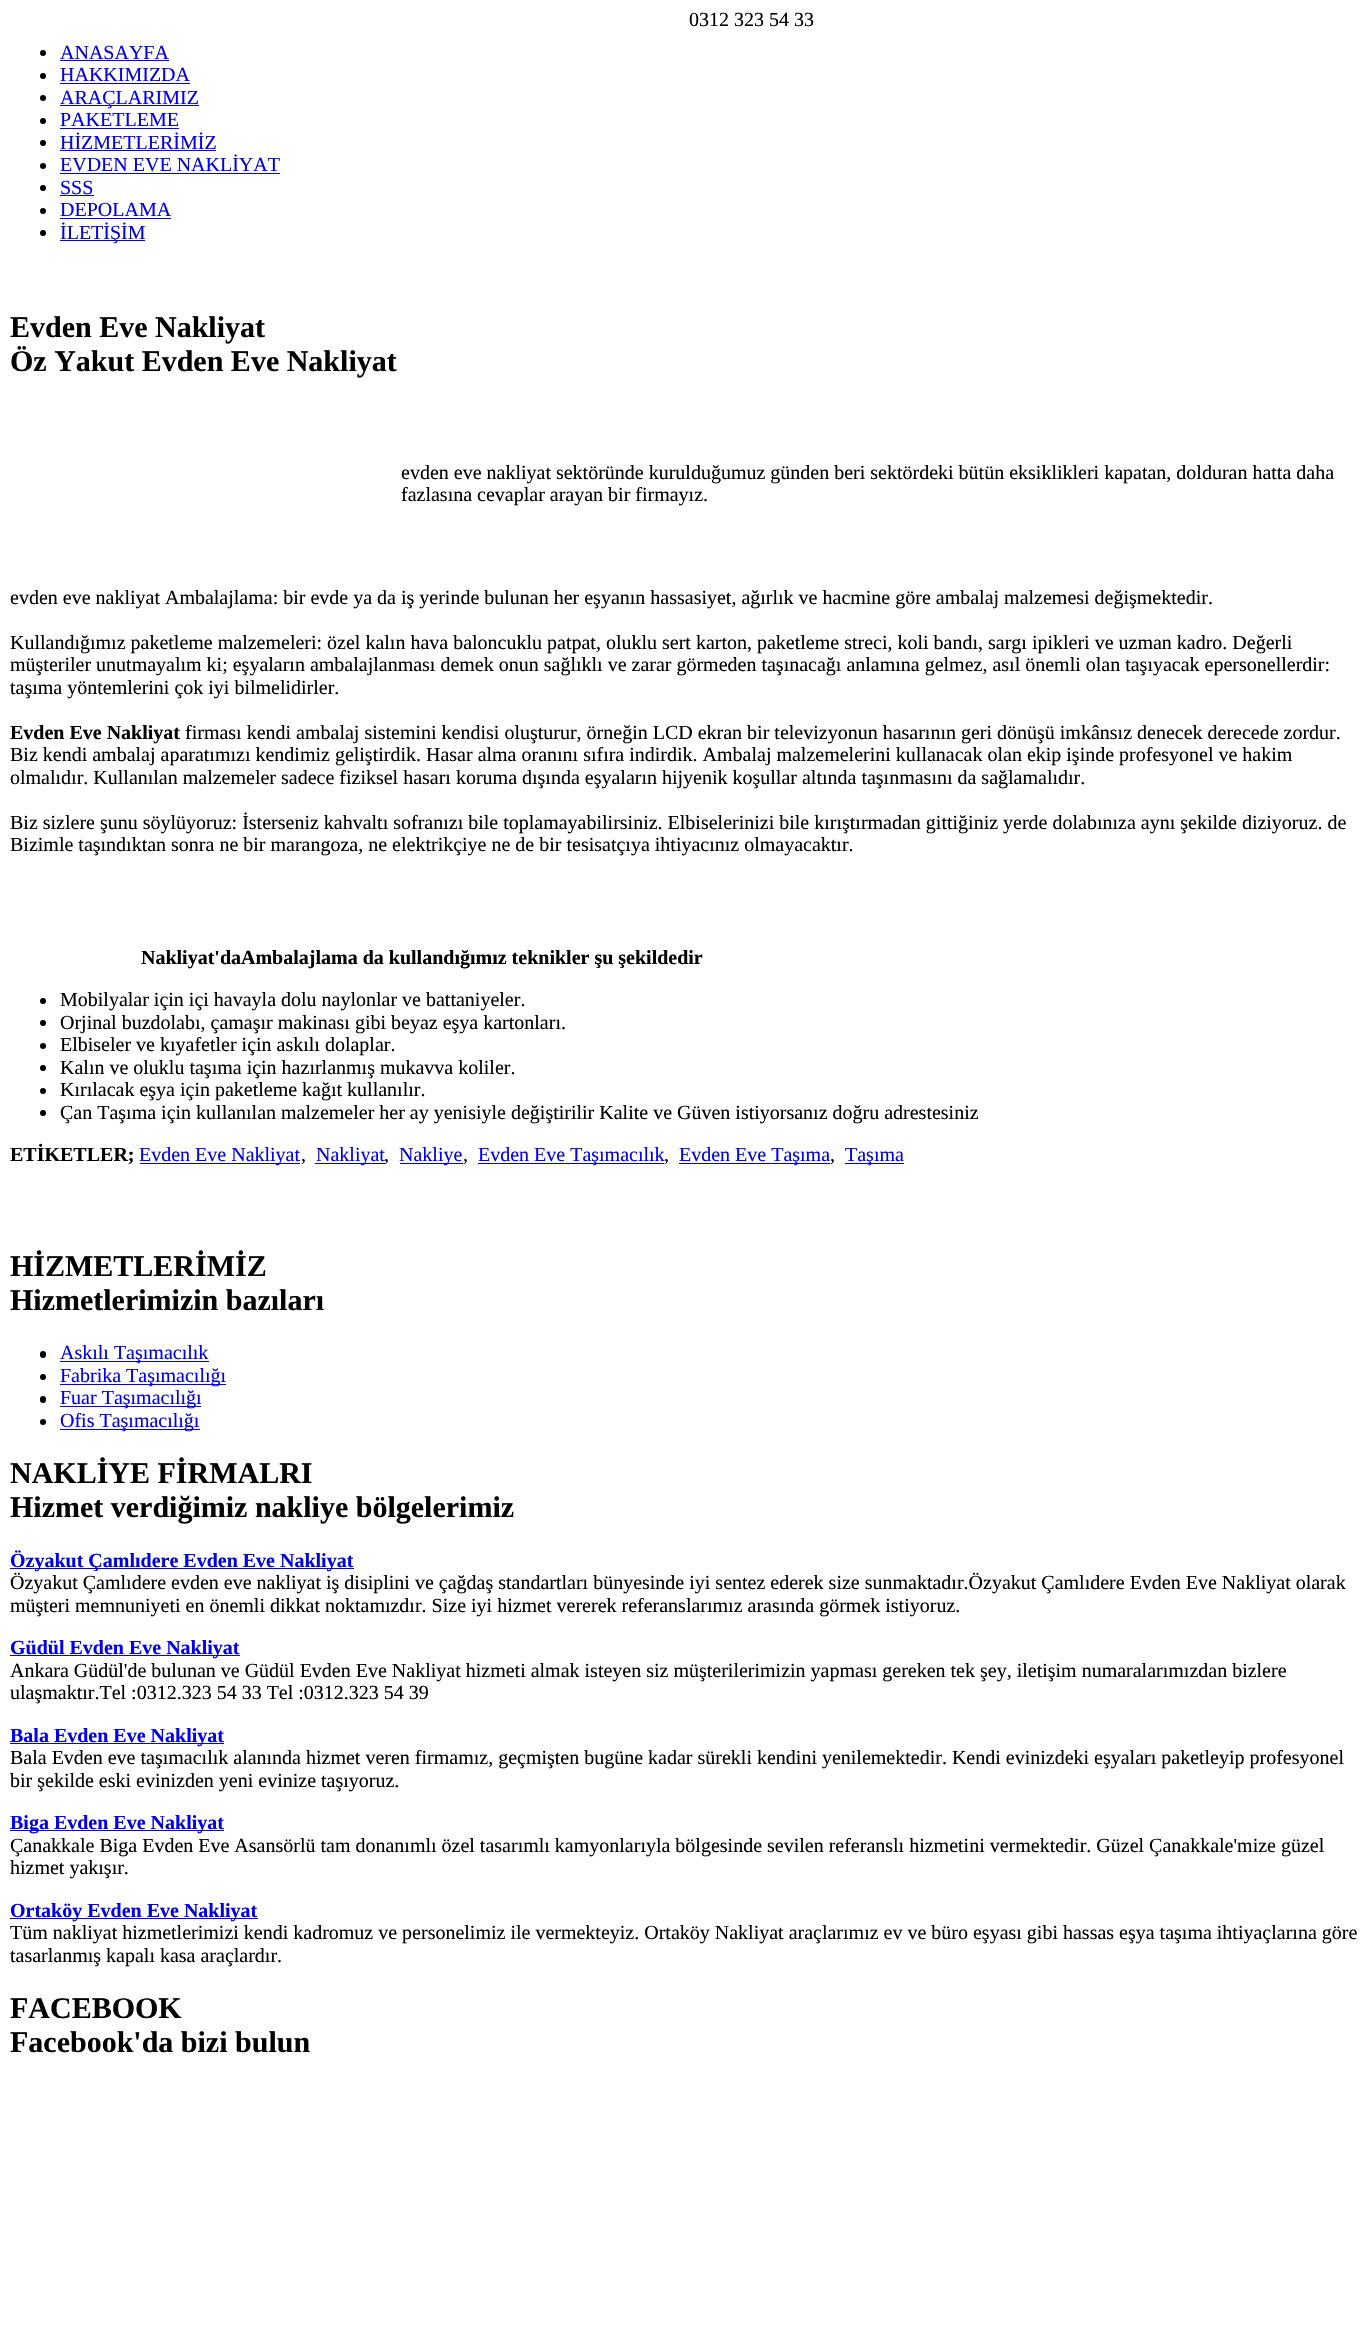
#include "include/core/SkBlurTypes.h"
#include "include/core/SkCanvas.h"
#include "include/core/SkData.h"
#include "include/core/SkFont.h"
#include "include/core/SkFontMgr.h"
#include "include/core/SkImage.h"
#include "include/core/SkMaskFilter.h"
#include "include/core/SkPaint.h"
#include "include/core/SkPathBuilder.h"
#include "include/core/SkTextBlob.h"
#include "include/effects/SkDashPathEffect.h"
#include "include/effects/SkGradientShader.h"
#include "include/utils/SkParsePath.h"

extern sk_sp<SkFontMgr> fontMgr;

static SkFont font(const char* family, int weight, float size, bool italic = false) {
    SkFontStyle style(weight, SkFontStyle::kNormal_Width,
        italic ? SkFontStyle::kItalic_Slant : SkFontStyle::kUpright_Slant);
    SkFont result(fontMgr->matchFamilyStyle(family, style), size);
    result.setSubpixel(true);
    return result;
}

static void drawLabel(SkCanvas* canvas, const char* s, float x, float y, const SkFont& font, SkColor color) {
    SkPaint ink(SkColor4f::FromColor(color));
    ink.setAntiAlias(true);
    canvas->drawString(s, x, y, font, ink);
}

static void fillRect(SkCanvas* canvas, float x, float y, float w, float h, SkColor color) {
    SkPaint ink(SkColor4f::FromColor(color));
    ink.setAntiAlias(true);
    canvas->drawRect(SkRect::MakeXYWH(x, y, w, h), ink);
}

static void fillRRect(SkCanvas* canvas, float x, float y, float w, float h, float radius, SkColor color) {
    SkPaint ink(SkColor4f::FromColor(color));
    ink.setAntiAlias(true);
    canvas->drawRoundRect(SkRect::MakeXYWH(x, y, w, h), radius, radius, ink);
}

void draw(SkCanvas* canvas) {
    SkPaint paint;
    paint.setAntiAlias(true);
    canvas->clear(0xFFFFFFFF);
    SkFont font1 = font("Liberation Serif", 400, 20);
    drawLabel(canvas, "0312 323 54 33", 689, 26, font1, 0xFF000000);
    paint.setColor(0xFF000000);
    canvas->drawCircle(43, 53, 3, paint);
    drawLabel(canvas, "ANASAYFA", 60, 59, font1, 0xFF0000EE);
    fillRect(canvas, 60, 60, 109, 1, 0xFF0000EE);
    canvas->drawCircle(43, 76, 3, paint);
    drawLabel(canvas, "HAKKIMIZDA", 60, 81, font1, 0xFF0000EE);
    fillRect(canvas, 60, 83, 130, 1, 0xFF0000EE);
    canvas->drawCircle(43, 98, 3, paint);
    fillRect(canvas, 60, 105, 139, 1, 0xFF0000EE);
    drawLabel(canvas, "ARAÇLARIMIZ", 60, 104, font1, 0xFF0000EE);
    canvas->drawCircle(43, 121, 3, paint);
    drawLabel(canvas, "PAKETLEME", 60, 126, font1, 0xFF0000EE);
    fillRect(canvas, 60, 128, 119, 1, 0xFF0000EE);
    canvas->drawCircle(43, 143, 3, paint);
    drawLabel(canvas, "HİZMETLERİMİZ", 60, 149, font1, 0xFF0000EE);
    fillRect(canvas, 60, 150, 156, 1, 0xFF0000EE);
    canvas->drawCircle(43, 166, 3, paint);
    drawLabel(canvas, "EVDEN EVE NAKLİYAT", 60, 171, font1, 0xFF0000EE);
    fillRect(canvas, 60, 173, 220, 1, 0xFF0000EE);
    canvas->drawCircle(43, 188, 3, paint);
    drawLabel(canvas, "SSS", 60, 194, font1, 0xFF0000EE);
    fillRect(canvas, 60, 195, 34, 1, 0xFF0000EE);
    canvas->drawCircle(43, 211, 3, paint);
    drawLabel(canvas, "DEPOLAMA", 60, 216, font1, 0xFF0000EE);
    fillRect(canvas, 60, 218, 111, 1, 0xFF0000EE);
    canvas->drawCircle(43, 233, 3, paint);
    fillRect(canvas, 60, 240, 85, 1, 0xFF0000EE);
    drawLabel(canvas, "İLETİŞİM", 60, 239, font1, 0xFF0000EE);
    SkFont font2 = font("Liberation Serif", 700, 30);
    drawLabel(canvas, "Evden Eve Nakliyat", 10, 337, font2, 0xFF000000);
    drawLabel(canvas, "Öz Yakut Evden Eve Nakliyat", 10, 371, font2, 0xFF000000);
    drawLabel(canvas, "evden eve nakliyat sektöründe kurulduğumuz günden beri sektördeki bütün eksiklikleri kapatan, dolduran hatta daha", 401, 479, font1, 0xFF000000);
    drawLabel(canvas, "fazlasına cevaplar arayan bir firmayız.", 401, 501, font1, 0xFF000000);
    drawLabel(canvas, "evden eve nakliyat Ambalajlama: bir evde ya da iş yerinde bulunan her eşyanın hassasiyet, ağırlık ve hacmine göre ambalaj malzemesi değişmektedir.", 10, 604, font1, 0xFF000000);
    drawLabel(canvas, "Kullandığımız paketleme malzemeleri: özel kalın hava baloncuklu patpat, oluklu sert karton, paketleme streci, koli bandı, sargı ipikleri ve uzman kadro. Değerli", 10, 649, font1, 0xFF000000);
    drawLabel(canvas, "müşteriler unutmayalım ki; eşyaların ambalajlanması demek onun sağlıklı ve zarar görmeden taşınacağı anlamına gelmez, asıl önemli olan taşıyacak epersonellerdir:", 10, 671, font1, 0xFF000000);
    drawLabel(canvas, "taşıma yöntemlerini çok iyi bilmelidirler.", 10, 694, font1, 0xFF000000);
    SkFont font3 = font("Liberation Serif", 700, 20);
    drawLabel(canvas, "Evden Eve Nakliyat", 10, 739, font3, 0xFF000000);
    drawLabel(canvas, "firması kendi ambalaj sistemini kendisi oluşturur, örneğin LCD ekran bir televizyonun hasarının geri dönüşü imkânsız denecek derecede zordur.", 185, 739, font1, 0xFF000000);
    drawLabel(canvas, "Biz kendi ambalaj aparatımızı kendimiz geliştirdik. Hasar alma oranını sıfıra indirdik. Ambalaj malzemelerini kullanacak olan ekip işinde profesyonel ve hakim", 10, 761, font1, 0xFF000000);
    drawLabel(canvas, "olmalıdır. Kullanılan malzemeler sadece fiziksel hasarı koruma dışında eşyaların hijyenik koşullar altında taşınmasını da sağlamalıdır.", 10, 784, font1, 0xFF000000);
    drawLabel(canvas, "Biz sizlere şunu söylüyoruz: İsterseniz kahvaltı sofranızı bile toplamayabilirsiniz. Elbiselerinizi bile kırıştırmadan gittiğiniz yerde dolabınıza aynı şekilde diziyoruz. de", 10, 829, font1, 0xFF000000);
    drawLabel(canvas, "Bizimle taşındıktan sonra ne bir marangoza, ne elektrikçiye ne de bir tesisatçıya ihtiyacınız olmayacaktır.", 10, 851, font1, 0xFF000000);
    drawLabel(canvas, "Nakliyat'daAmbalajlama da kullandığımız teknikler şu şekildedir", 141, 964, font3, 0xFF000000);
    canvas->drawCircle(43, 1001, 3, paint);
    drawLabel(canvas, "Mobilyalar için içi havayla dolu naylonlar ve battaniyeler.", 60, 1006, font1, 0xFF000000);
    canvas->drawCircle(43, 1023, 3, paint);
    drawLabel(canvas, "Orjinal buzdolabı, çamaşır makinası gibi beyaz eşya kartonları.", 60, 1029, font1, 0xFF000000);
    canvas->drawCircle(43, 1046, 3, paint);
    drawLabel(canvas, "Elbiseler ve kıyafetler için askılı dolaplar.", 60, 1051, font1, 0xFF000000);
    canvas->drawCircle(43, 1068, 3, paint);
    drawLabel(canvas, "Kalın ve oluklu taşıma için hazırlanmış mukavva koliler.", 60, 1074, font1, 0xFF000000);
    canvas->drawCircle(43, 1091, 3, paint);
    drawLabel(canvas, "Kırılacak eşya için paketleme kağıt kullanılır.", 60, 1096, font1, 0xFF000000);
    canvas->drawCircle(43, 1113, 3, paint);
    drawLabel(canvas, "Çan Taşıma için kullanılan malzemeler her ay yenisiyle değiştirilir Kalite ve Güven istiyorsanız doğru adrestesiniz", 60, 1119, font1, 0xFF000000);
    drawLabel(canvas, "ETİKETLER;", 10, 1161, font3, 0xFF000000);
    fillRect(canvas, 140, 1163, 160, 1, 0xFF0000EE);
    drawLabel(canvas, "Evden Eve Nakliyat", 139, 1161, font1, 0xFF0000EE);
    drawLabel(canvas, ",", 301, 1161, font1, 0xFF000000);
    fillRect(canvas, 315, 1163, 70, 1, 0xFF0000EE);
    drawLabel(canvas, "Nakliyat", 316, 1161, font1, 0xFF0000EE);
    drawLabel(canvas, ",", 384, 1161, font1, 0xFF000000);
    fillRect(canvas, 400, 1163, 63, 1, 0xFF0000EE);
    drawLabel(canvas, "Nakliye", 399, 1161, font1, 0xFF0000EE);
    drawLabel(canvas, ",", 463, 1161, font1, 0xFF000000);
    fillRect(canvas, 478, 1163, 186, 1, 0xFF0000EE);
    drawLabel(canvas, "Evden Eve Taşımacılık", 478, 1161, font1, 0xFF0000EE);
    drawLabel(canvas, ",", 664, 1161, font1, 0xFF000000);
    fillRect(canvas, 679, 1163, 151, 1, 0xFF0000EE);
    drawLabel(canvas, "Evden Eve Taşıma", 679, 1161, font1, 0xFF0000EE);
    drawLabel(canvas, ",", 830, 1161, font1, 0xFF000000);
    fillRect(canvas, 845, 1163, 59, 1, 0xFF0000EE);
    drawLabel(canvas, "Taşıma", 845, 1161, font1, 0xFF0000EE);
    drawLabel(canvas, "HİZMETLERİMİZ", 10, 1276, font2, 0xFF000000);
    drawLabel(canvas, "Hizmetlerimizin bazıları", 10, 1310, font2, 0xFF000000);
    fillRRect(canvas, 40, 1351, 6, 7, 3, 0xFF000000);
    fillRect(canvas, 60, 1361, 149, 1, 0xFF0000EE);
    drawLabel(canvas, "Askılı Taşımacılık", 60, 1359, font1, 0xFF0000EE);
    canvas->drawCircle(43, 1377, 3, paint);
    fillRect(canvas, 60, 1384, 166, 1, 0xFF0000EE);
    drawLabel(canvas, "Fabrika Taşımacılığı", 60, 1382, font1, 0xFF0000EE);
    fillRRect(canvas, 40, 1396, 6, 7, 3, 0xFF000000);
    fillRect(canvas, 60, 1406, 141, 1, 0xFF0000EE);
    drawLabel(canvas, "Fuar Taşımacılığı", 60, 1404, font1, 0xFF0000EE);
    canvas->drawCircle(43, 1422, 3, paint);
    fillRect(canvas, 60, 1429, 140, 1, 0xFF0000EE);
    drawLabel(canvas, "Ofis Taşımacılığı", 60, 1427, font1, 0xFF0000EE);
    drawLabel(canvas, "NAKLİYE FİRMALRI", 10, 1483, font2, 0xFF000000);
    drawLabel(canvas, "Hizmet verdiğimiz nakliye bölgelerimiz", 10, 1517, font2, 0xFF000000);
    fillRect(canvas, 10, 1568, 344, 1, 0xFF0000EE);
    drawLabel(canvas, "Özyakut Çamlıdere Evden Eve Nakliyat", 10, 1567, font3, 0xFF0000EE);
    drawLabel(canvas, "Özyakut Çamlıdere evden eve nakliyat iş disiplini ve çağdaş standartları bünyesinde iyi sentez ederek size sunmaktadır.Özyakut Çamlıdere Evden Eve Nakliyat olarak", 10, 1589, font1, 0xFF000000);
    drawLabel(canvas, "müşteri memnuniyeti en önemli dikkat noktamızdır. Size iyi hizmet vererek referanslarımız arasında görmek istiyoruz.", 10, 1612, font1, 0xFF000000);
    fillRect(canvas, 10, 1655, 230, 1, 0xFF0000EE);
    drawLabel(canvas, "Güdül Evden Eve Nakliyat", 10, 1654, font3, 0xFF0000EE);
    drawLabel(canvas, "Ankara Güdül'de bulunan ve Güdül Evden Eve Nakliyat hizmeti almak isteyen siz müşterilerimizin yapması gereken tek şey, iletişim numaralarımızdan bizlere", 10, 1677, font1, 0xFF000000);
    drawLabel(canvas, "ulaşmaktır.Tel :0312.323 54 33 Tel :0312.323 54 39", 10, 1699, font1, 0xFF000000);
    fillRect(canvas, 10, 1743, 214, 1, 0xFF0000EE);
    drawLabel(canvas, "Bala Evden Eve Nakliyat", 10, 1742, font3, 0xFF0000EE);
    drawLabel(canvas, "Bala Evden eve taşımacılık alanında hizmet veren firmamız, geçmişten bugüne kadar sürekli kendini yenilemektedir. Kendi evinizdeki eşyaları paketleyip profesyonel", 10, 1764, font1, 0xFF000000);
    drawLabel(canvas, "bir şekilde eski evinizden yeni evinize taşıyoruz.", 10, 1787, font1, 0xFF000000);
    fillRect(canvas, 10, 1830, 214, 1, 0xFF0000EE);
    drawLabel(canvas, "Biga Evden Eve Nakliyat", 10, 1829, font3, 0xFF0000EE);
    drawLabel(canvas, "Çanakkale Biga Evden Eve Asansörlü tam donanımlı özel tasarımlı kamyonlarıyla bölgesinde sevilen referanslı hizmetini vermektedir. Güzel Çanakkale'mize güzel", 10, 1852, font1, 0xFF000000);
    drawLabel(canvas, "hizmet yakışır.", 10, 1874, font1, 0xFF000000);
    fillRect(canvas, 10, 1918, 248, 1, 0xFF0000EE);
    drawLabel(canvas, "Ortaköy Evden Eve Nakliyat", 10, 1917, font3, 0xFF0000EE);
    drawLabel(canvas, "Tüm nakliyat hizmetlerimizi kendi kadromuz ve personelimiz ile vermekteyiz. Ortaköy Nakliyat araçlarımız ev ve büro eşyası gibi hassas eşya taşıma ihtiyaçlarına göre", 10, 1939, font1, 0xFF000000);
    drawLabel(canvas, "tasarlanmış kapalı kasa araçlardır.", 10, 1962, font1, 0xFF000000);
    drawLabel(canvas, "FACEBOOK", 10, 2018, font2, 0xFF000000);
    drawLabel(canvas, "Facebook'da bizi bulun", 10, 2052, font2, 0xFF000000);
}
